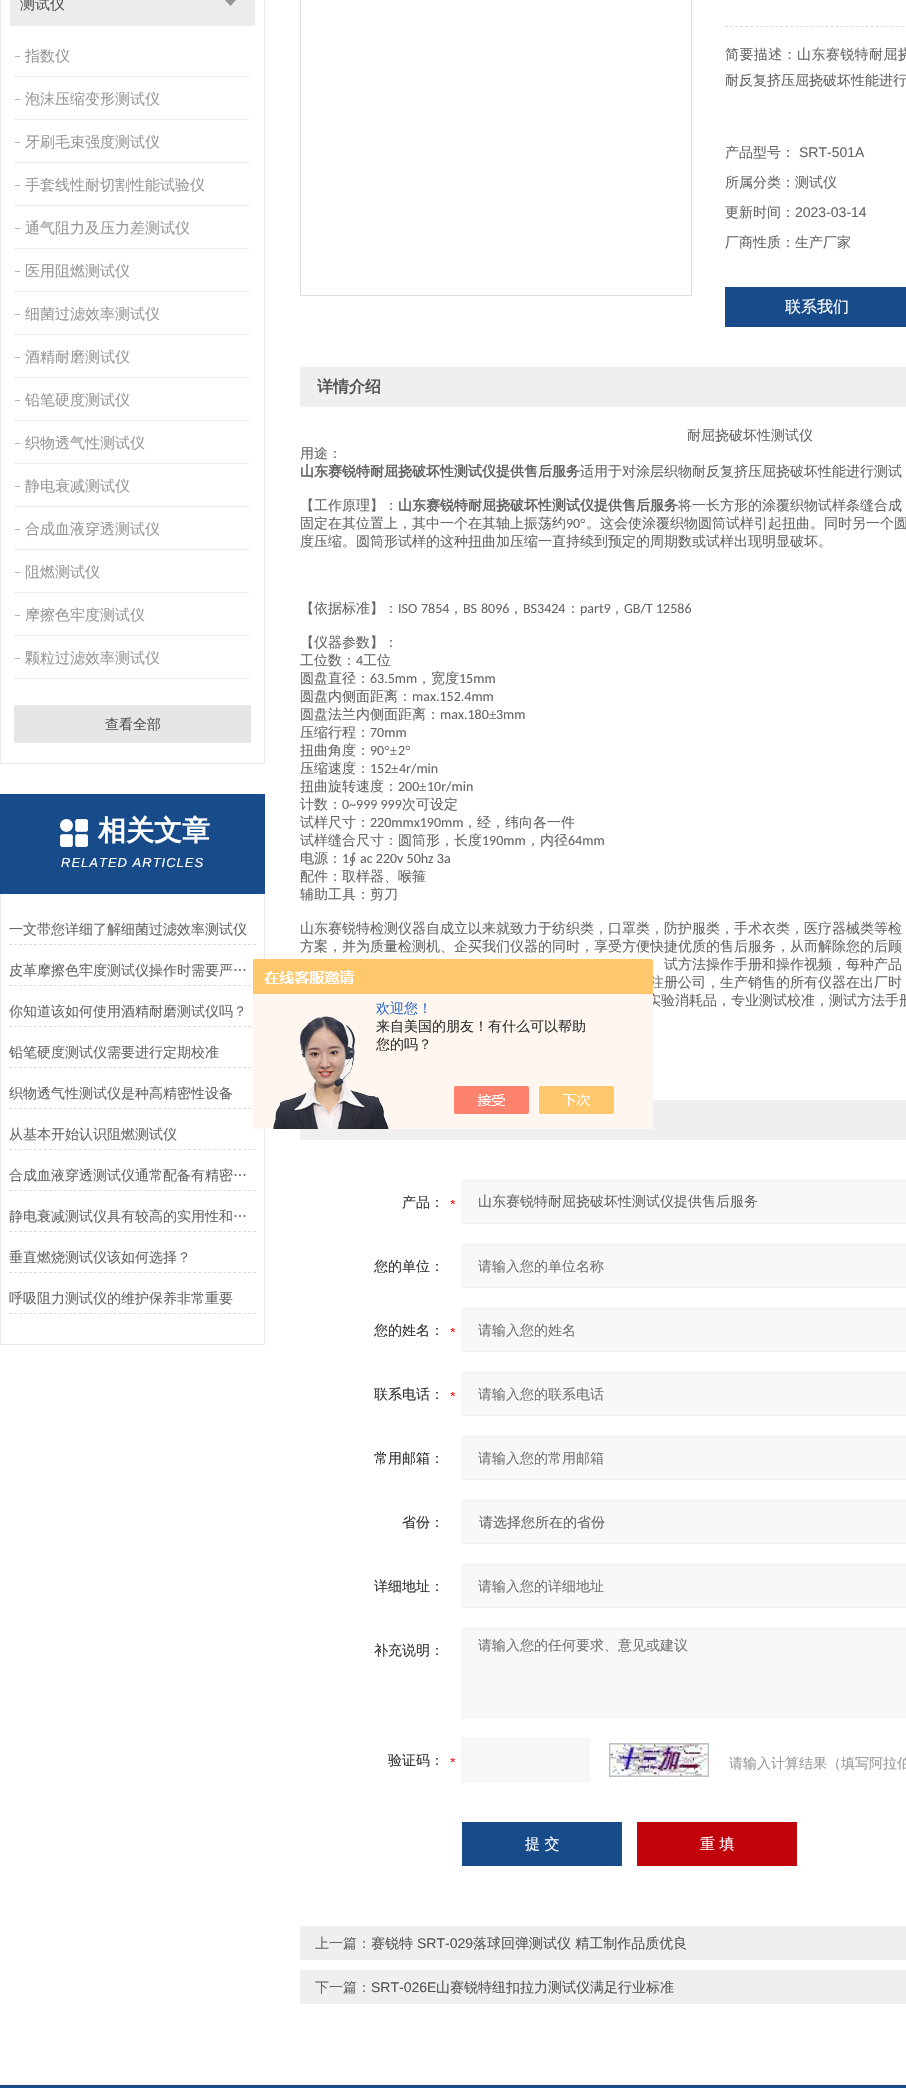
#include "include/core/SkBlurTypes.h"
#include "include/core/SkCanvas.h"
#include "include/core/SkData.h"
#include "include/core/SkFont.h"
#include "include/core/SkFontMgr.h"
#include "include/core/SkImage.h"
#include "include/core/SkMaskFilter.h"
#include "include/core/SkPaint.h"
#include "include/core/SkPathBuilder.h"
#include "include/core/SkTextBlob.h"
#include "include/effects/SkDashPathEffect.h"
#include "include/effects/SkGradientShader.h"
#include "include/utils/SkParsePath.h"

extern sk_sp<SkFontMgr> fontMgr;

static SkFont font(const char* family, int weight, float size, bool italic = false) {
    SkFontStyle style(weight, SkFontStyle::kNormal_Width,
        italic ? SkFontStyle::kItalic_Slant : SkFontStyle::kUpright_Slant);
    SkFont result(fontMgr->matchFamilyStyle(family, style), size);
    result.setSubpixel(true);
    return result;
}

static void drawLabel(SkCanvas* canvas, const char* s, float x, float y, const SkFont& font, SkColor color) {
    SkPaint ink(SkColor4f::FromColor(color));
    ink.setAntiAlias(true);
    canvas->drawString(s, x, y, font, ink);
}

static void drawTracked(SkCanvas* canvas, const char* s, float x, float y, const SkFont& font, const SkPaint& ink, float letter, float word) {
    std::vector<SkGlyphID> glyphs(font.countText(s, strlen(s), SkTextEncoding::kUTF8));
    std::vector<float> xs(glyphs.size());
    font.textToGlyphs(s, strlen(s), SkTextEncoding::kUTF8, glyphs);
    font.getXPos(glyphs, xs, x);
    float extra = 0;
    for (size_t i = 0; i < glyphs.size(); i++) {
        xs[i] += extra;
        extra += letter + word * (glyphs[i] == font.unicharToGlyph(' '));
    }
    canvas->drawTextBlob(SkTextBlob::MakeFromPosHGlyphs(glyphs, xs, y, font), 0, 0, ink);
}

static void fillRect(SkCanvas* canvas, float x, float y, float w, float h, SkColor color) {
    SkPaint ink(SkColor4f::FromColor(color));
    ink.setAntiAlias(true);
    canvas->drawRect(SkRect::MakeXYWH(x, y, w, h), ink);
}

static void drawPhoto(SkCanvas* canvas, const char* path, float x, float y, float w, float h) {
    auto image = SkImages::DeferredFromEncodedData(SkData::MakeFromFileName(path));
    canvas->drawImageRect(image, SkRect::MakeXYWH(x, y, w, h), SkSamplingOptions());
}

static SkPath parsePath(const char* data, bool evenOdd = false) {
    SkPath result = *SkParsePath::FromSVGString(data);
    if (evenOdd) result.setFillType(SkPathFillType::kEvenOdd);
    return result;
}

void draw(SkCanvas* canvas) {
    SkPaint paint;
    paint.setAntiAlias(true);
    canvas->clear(0xFFFFFFFF);
    fillRect(canvas, 264, 0, 1, 764, 0xFFE8E8E8);
    fillRect(canvas, 0, 763, 265, 1, 0xFFE8E8E8);
    fillRect(canvas, 0, 0, 1, 764, 0xFFE8E8E8);
    fillRect(canvas, 10, 0, 245, 26, 0xFFECECEC);
    SkFont font1 = font("WenQuanYi Zen Hei", 500, 15);
    drawLabel(canvas, "测试仪", 20, 9, font1, 0xFF555555);
    drawPhoto(canvas, "assets/img1.png", 225, 0, 11, 6);
    paint.setStroke(true);
    paint.setStrokeWidth(1);
    paint.setColor(0xFFDEDEDE);
    paint.setPathEffect(SkDashPathEffect::Make({{1, 1}}, 0));
    canvas->drawPath(parsePath("M15 76.5H250"), paint);
    paint.setPathEffect(nullptr);
    fillRect(canvas, 15, 56, 5, 1, 0xFFB3B3B3);
    drawLabel(canvas, "指数仪", 25, 61, font1, 0xFF999999);
    paint.setPathEffect(SkDashPathEffect::Make({{1, 1}}, 0));
    canvas->drawPath(parsePath("M15 119.5H250"), paint);
    paint.setPathEffect(nullptr);
    fillRect(canvas, 15, 99, 5, 1, 0xFFB3B3B3);
    drawLabel(canvas, "泡沫压缩变形测试仪", 25, 104, font1, 0xFF999999);
    paint.setPathEffect(SkDashPathEffect::Make({{1, 1}}, 0));
    canvas->drawPath(parsePath("M15 162.5H250"), paint);
    paint.setPathEffect(nullptr);
    fillRect(canvas, 15, 142, 5, 1, 0xFFB3B3B3);
    drawLabel(canvas, "牙刷毛束强度测试仪", 25, 147, font1, 0xFF999999);
    paint.setPathEffect(SkDashPathEffect::Make({{1, 1}}, 0));
    canvas->drawPath(parsePath("M15 205.5H250"), paint);
    paint.setPathEffect(nullptr);
    fillRect(canvas, 15, 185, 5, 1, 0xFFB3B3B3);
    drawLabel(canvas, "手套线性耐切割性能试验仪", 25, 190, font1, 0xFF999999);
    paint.setPathEffect(SkDashPathEffect::Make({{1, 1}}, 0));
    canvas->drawPath(parsePath("M15 248.5H250"), paint);
    paint.setPathEffect(nullptr);
    fillRect(canvas, 15, 228, 5, 1, 0xFFB3B3B3);
    drawLabel(canvas, "通气阻力及压力差测试仪", 25, 233, font1, 0xFF999999);
    paint.setPathEffect(SkDashPathEffect::Make({{1, 1}}, 0));
    canvas->drawPath(parsePath("M15 291.5H250"), paint);
    paint.setPathEffect(nullptr);
    fillRect(canvas, 15, 271, 5, 1, 0xFFB3B3B3);
    drawLabel(canvas, "医用阻燃测试仪", 25, 276, font1, 0xFF999999);
    paint.setPathEffect(SkDashPathEffect::Make({{1, 1}}, 0));
    canvas->drawPath(parsePath("M15 334.5H250"), paint);
    paint.setPathEffect(nullptr);
    fillRect(canvas, 15, 314, 5, 1, 0xFFB3B3B3);
    drawLabel(canvas, "细菌过滤效率测试仪", 25, 319, font1, 0xFF999999);
    paint.setPathEffect(SkDashPathEffect::Make({{1, 1}}, 0));
    canvas->drawPath(parsePath("M15 377.5H250"), paint);
    paint.setPathEffect(nullptr);
    fillRect(canvas, 15, 357, 5, 1, 0xFFB3B3B3);
    drawLabel(canvas, "酒精耐磨测试仪", 25, 362, font1, 0xFF999999);
    paint.setPathEffect(SkDashPathEffect::Make({{1, 1}}, 0));
    canvas->drawPath(parsePath("M15 420.5H250"), paint);
    paint.setPathEffect(nullptr);
    fillRect(canvas, 15, 400, 5, 1, 0xFFB3B3B3);
    drawLabel(canvas, "铅笔硬度测试仪", 25, 405, font1, 0xFF999999);
    paint.setPathEffect(SkDashPathEffect::Make({{1, 1}}, 0));
    canvas->drawPath(parsePath("M15 463.5H250"), paint);
    paint.setPathEffect(nullptr);
    fillRect(canvas, 15, 443, 5, 1, 0xFFB3B3B3);
    drawLabel(canvas, "织物透气性测试仪", 25, 448, font1, 0xFF999999);
    paint.setPathEffect(SkDashPathEffect::Make({{1, 1}}, 0));
    canvas->drawPath(parsePath("M15 506.5H250"), paint);
    paint.setPathEffect(nullptr);
    fillRect(canvas, 15, 486, 5, 1, 0xFFB3B3B3);
    drawLabel(canvas, "静电衰减测试仪", 25, 491, font1, 0xFF999999);
    paint.setPathEffect(SkDashPathEffect::Make({{1, 1}}, 0));
    canvas->drawPath(parsePath("M15 549.5H250"), paint);
    paint.setPathEffect(nullptr);
    fillRect(canvas, 15, 529, 5, 1, 0xFFB3B3B3);
    drawLabel(canvas, "合成血液穿透测试仪", 25, 534, font1, 0xFF999999);
    paint.setPathEffect(SkDashPathEffect::Make({{1, 1}}, 0));
    canvas->drawPath(parsePath("M15 592.5H250"), paint);
    paint.setPathEffect(nullptr);
    fillRect(canvas, 15, 572, 5, 1, 0xFFB3B3B3);
    drawLabel(canvas, "阻燃测试仪", 25, 577, font1, 0xFF999999);
    paint.setPathEffect(SkDashPathEffect::Make({{1, 1}}, 0));
    canvas->drawPath(parsePath("M15 635.5H250"), paint);
    paint.setPathEffect(nullptr);
    fillRect(canvas, 15, 615, 5, 1, 0xFFB3B3B3);
    drawLabel(canvas, "摩擦色牢度测试仪", 25, 620, font1, 0xFF999999);
    paint.setPathEffect(SkDashPathEffect::Make({{1, 1}}, 0));
    canvas->drawPath(parsePath("M15 678.5H250"), paint);
    paint.setPathEffect(nullptr);
    fillRect(canvas, 15, 658, 5, 1, 0xFFB3B3B3);
    drawLabel(canvas, "颗粒过滤效率测试仪", 25, 663, font1, 0xFF999999);
    fillRect(canvas, 14, 705, 237, 38, 0xFFE6E6E6);
    SkFont font2 = font("WenQuanYi Zen Hei", 500, 14);
    drawLabel(canvas, "查看全部", 105, 729, font2, 0xFF555555);
    fillRect(canvas, 0, 794, 265, 100, 0xFF184B8A);
    drawPhoto(canvas, "assets/img2.png", 60, 819, 28, 28);
    SkFont font3 = font("WenQuanYi Zen Hei", 700, 28);
    drawLabel(canvas, "相关文章", 98, 840, font3, 0xFFFFFFFF);
    SkFont font4 = font("Liberation Sans", 400, 13, true);
    paint.setStroke(false);
    paint.setColor(0xFFFFFFFF);
    drawTracked(canvas, "RELATED ARTICLES", 61, 867, font4, paint, 1, 0);
    fillRect(canvas, 264, 894, 1, 451, 0xFFE8E8E8);
    fillRect(canvas, 0, 1344, 265, 1, 0xFFE8E8E8);
    fillRect(canvas, 0, 894, 1, 451, 0xFFE8E8E8);
    paint.setStroke(true);
    paint.setColor(0xFFDEDEDE);
    paint.setPathEffect(SkDashPathEffect::Make({{3, 1.98f}}, 0));
    canvas->drawPath(parsePath("M9 944.5H256"), paint);
    paint.setPathEffect(nullptr);
    drawLabel(canvas, "一文带您详细了解细菌过滤效率测试仪", 9, 934, font2, 0xFF666666);
    paint.setPathEffect(SkDashPathEffect::Make({{3, 1.98f}}, 0));
    canvas->drawPath(parsePath("M9 985.5H256"), paint);
    paint.setPathEffect(nullptr);
    drawLabel(canvas, "皮革摩擦色牢度测试仪操作时需要严…", 9, 975, font2, 0xFF666666);
    paint.setPathEffect(SkDashPathEffect::Make({{3, 1.98f}}, 0));
    canvas->drawPath(parsePath("M9 1026.5H256"), paint);
    paint.setPathEffect(nullptr);
    drawLabel(canvas, "你知道该如何使用酒精耐磨测试仪吗？", 9, 1016, font2, 0xFF666666);
    paint.setPathEffect(SkDashPathEffect::Make({{3, 1.98f}}, 0));
    canvas->drawPath(parsePath("M9 1067.5H256"), paint);
    paint.setPathEffect(nullptr);
    drawLabel(canvas, "铅笔硬度测试仪需要进行定期校准", 9, 1057, font2, 0xFF666666);
    paint.setPathEffect(SkDashPathEffect::Make({{3, 1.98f}}, 0));
    canvas->drawPath(parsePath("M9 1108.5H256"), paint);
    paint.setPathEffect(nullptr);
    drawLabel(canvas, "织物透气性测试仪是种高精密性设备", 9, 1098, font2, 0xFF666666);
    paint.setPathEffect(SkDashPathEffect::Make({{3, 1.98f}}, 0));
    canvas->drawPath(parsePath("M9 1149.5H256"), paint);
    paint.setPathEffect(nullptr);
    drawLabel(canvas, "从基本开始认识阻燃测试仪", 9, 1139, font2, 0xFF666666);
    paint.setPathEffect(SkDashPathEffect::Make({{3, 1.98f}}, 0));
    canvas->drawPath(parsePath("M9 1190.5H256"), paint);
    paint.setPathEffect(nullptr);
    drawLabel(canvas, "合成血液穿透测试仪通常配备有精密…", 9, 1180, font2, 0xFF666666);
    paint.setPathEffect(SkDashPathEffect::Make({{3, 1.98f}}, 0));
    canvas->drawPath(parsePath("M9 1231.5H256"), paint);
    paint.setPathEffect(nullptr);
    drawLabel(canvas, "静电衰减测试仪具有较高的实用性和…", 9, 1221, font2, 0xFF666666);
    paint.setPathEffect(SkDashPathEffect::Make({{3, 1.98f}}, 0));
    canvas->drawPath(parsePath("M9 1272.5H256"), paint);
    paint.setPathEffect(nullptr);
    drawLabel(canvas, "垂直燃烧测试仪该如何选择？", 9, 1262, font2, 0xFF666666);
    paint.setPathEffect(SkDashPathEffect::Make({{3, 1.98f}}, 0));
    canvas->drawPath(parsePath("M9 1313.5H256"), paint);
    paint.setPathEffect(nullptr);
    drawLabel(canvas, "呼吸阻力测试仪的维护保养非常重要", 9, 1303, font2, 0xFF666666);
    paint.setColor(0xFFDDDDDD);
    canvas->drawRect(SkRect::MakeXYWH(300.5f, -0.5f, 391, 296), paint);
    paint.setPathEffect(SkDashPathEffect::Make({{3, 2.02f}}, 0));
    canvas->drawPath(parsePath("M725 26.5H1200"), paint);
    paint.setPathEffect(nullptr);
    paint.setStroke(false);
    paint.setColor(0xFF666666);
    drawTracked(canvas, "简要描述：山东赛锐特耐屈挠", 725, 59, font2, paint, 0.4f, 0);
    drawLabel(canvas, "耐反复挤压屈挠破坏性能进行", 725, 85, font2, 0xFF666666);
    drawLabel(canvas, "产品型号：", 725, 157, font2, 0xFF666666);
    SkFont font5 = font("Liberation Sans", 400, 14);
    drawLabel(canvas, "SRT-501A", 799, 157, font5, 0xFF666666);
    drawLabel(canvas, "所属分类：测试仪", 725, 187, font2, 0xFF666666);
    drawLabel(canvas, "更新时间：", 725, 217, font2, 0xFF666666);
    drawLabel(canvas, "2023-03-14", 795, 217, font5, 0xFF666666);
    drawLabel(canvas, "厂商性质：生产厂家", 725, 247, font2, 0xFF666666);
    fillRect(canvas, 725, 287, 181, 40, 0xFF184B8A);
    SkFont font6 = font("WenQuanYi Zen Hei", 500, 16);
    drawLabel(canvas, "联系我们", 785, 312, font6, 0xFFFFFFFF);
    fillRect(canvas, 300, 367, 606, 40, 0xFFEFEFEF);
    SkFont font7 = font("WenQuanYi Zen Hei", 700, 16);
    drawLabel(canvas, "详情介绍", 317, 392, font7, 0xFF555555);
    drawLabel(canvas, "耐屈挠破坏性测试仪", 687, 440, font2, 0xFF666666);
    drawLabel(canvas, "用途：", 300, 458, font2, 0xFF666666);
    SkFont font8 = font("WenQuanYi Zen Hei", 700, 14);
    drawLabel(canvas, "山东赛锐特耐屈挠破坏性测试仪提供售后服务", 300, 476, font8, 0xFF666666);
    drawLabel(canvas, "适用于对涂层织物耐反复挤压屈挠破坏性能进行测试", 580, 476, font2, 0xFF666666);
    drawLabel(canvas, "【工作原理】：", 300, 510, font2, 0xFF666666);
    drawLabel(canvas, "山东赛锐特耐屈挠破坏性测试仪提供售后服务", 398, 510, font8, 0xFF666666);
    drawLabel(canvas, "将一长方形的涂覆织物试样条缝合成", 678, 510, font2, 0xFF666666);
    drawLabel(canvas, "固定在其位置上，其中一个在其轴上振荡约", 300, 528, font2, 0xFF666666);
    SkFont font9 = font("Carlito", 400, 14);
    drawLabel(canvas, "90", 566, 528, font9, 0xFF666666);
    SkFont font10 = font("Liberation Serif", 400, 14);
    drawLabel(canvas, "°", 580, 528, font10, 0xFF666666);
    drawLabel(canvas, "。这会使涂覆织物圆筒试样引起扭曲。同时另一个圆", 586, 528, font2, 0xFF666666);
    drawLabel(canvas, "度压缩。圆筒形试样的这种扭曲加压缩一直持续到预定的周期数或试样出现明显破坏。", 300, 546, font2, 0xFF666666);
    drawLabel(canvas, "【依据标准】：", 300, 613, font2, 0xFF666666);
    drawLabel(canvas, "ISO", 398, 613, font9, 0xFF666666);
    drawLabel(canvas, "7854", 421, 613, font9, 0xFF666666);
    drawLabel(canvas, "，", 449, 613, font2, 0xFF666666);
    drawLabel(canvas, "BS", 463, 613, font9, 0xFF666666);
    drawLabel(canvas, "8096", 481, 613, font9, 0xFF666666);
    drawLabel(canvas, "，", 509, 613, font2, 0xFF666666);
    drawLabel(canvas, "BS3424", 523, 613, font9, 0xFF666666);
    drawLabel(canvas, "：", 566, 613, font2, 0xFF666666);
    drawLabel(canvas, "part9", 580, 613, font9, 0xFF666666);
    drawLabel(canvas, "，", 610, 613, font2, 0xFF666666);
    drawLabel(canvas, "GB/T", 624, 613, font9, 0xFF666666);
    drawLabel(canvas, "12586", 656, 613, font9, 0xFF666666);
    drawLabel(canvas, "【仪器参数】：", 300, 647, font2, 0xFF666666);
    drawLabel(canvas, "工位数：", 300, 665, font2, 0xFF666666);
    drawLabel(canvas, "4", 356, 665, font9, 0xFF666666);
    drawLabel(canvas, "工位", 363, 665, font2, 0xFF666666);
    drawLabel(canvas, "圆盘直径：", 300, 683, font2, 0xFF666666);
    drawLabel(canvas, "63.5mm", 370, 683, font9, 0xFF666666);
    drawLabel(canvas, "，宽度", 417, 683, font2, 0xFF666666);
    drawLabel(canvas, "15mm", 459, 683, font9, 0xFF666666);
    drawLabel(canvas, "圆盘内侧面距离：", 300, 701, font2, 0xFF666666);
    drawLabel(canvas, "max.152.4mm", 412, 701, font9, 0xFF666666);
    drawLabel(canvas, "圆盘法兰内侧面距离：", 300, 719, font2, 0xFF666666);
    drawLabel(canvas, "max.180", 440, 719, font9, 0xFF666666);
    drawLabel(canvas, "±", 489, 719, font10, 0xFF666666);
    drawLabel(canvas, "3mm", 496, 719, font9, 0xFF666666);
    drawLabel(canvas, "压缩行程：", 300, 737, font2, 0xFF666666);
    drawLabel(canvas, "70mm", 370, 737, font9, 0xFF666666);
    drawLabel(canvas, "扭曲角度：", 300, 755, font2, 0xFF666666);
    drawLabel(canvas, "90", 370, 755, font9, 0xFF666666);
    drawLabel(canvas, "°±", 384, 755, font10, 0xFF666666);
    drawLabel(canvas, "2", 398, 755, font9, 0xFF666666);
    drawLabel(canvas, "°", 405, 755, font10, 0xFF666666);
    drawLabel(canvas, "压缩速度：", 300, 773, font2, 0xFF666666);
    drawLabel(canvas, "152", 370, 773, font9, 0xFF666666);
    drawLabel(canvas, "±", 391, 773, font10, 0xFF666666);
    drawLabel(canvas, "4r/min", 399, 773, font9, 0xFF666666);
    drawLabel(canvas, "扭曲旋转速度：", 300, 791, font2, 0xFF666666);
    drawLabel(canvas, "200", 398, 791, font9, 0xFF666666);
    drawLabel(canvas, "±", 419, 791, font10, 0xFF666666);
    drawLabel(canvas, "10r/min", 427, 791, font9, 0xFF666666);
    drawLabel(canvas, "计数：", 300, 809, font2, 0xFF666666);
    drawLabel(canvas, "0~999 999", 342, 809, font9, 0xFF666666);
    drawLabel(canvas, "次可设定", 402, 809, font2, 0xFF666666);
    drawLabel(canvas, "试样尺寸：", 300, 827, font2, 0xFF666666);
    drawLabel(canvas, "220mmx190mm", 370, 827, font9, 0xFF666666);
    drawLabel(canvas, "，经，纬向各一件", 463, 827, font2, 0xFF666666);
    drawLabel(canvas, "试样缝合尺寸：圆筒形，长度", 300, 845, font2, 0xFF666666);
    drawLabel(canvas, "190mm", 482, 845, font9, 0xFF666666);
    drawLabel(canvas, "，内径", 526, 845, font2, 0xFF666666);
    drawLabel(canvas, "64mm", 568, 845, font9, 0xFF666666);
    drawLabel(canvas, "电源：", 300, 863, font2, 0xFF666666);
    drawLabel(canvas, "1", 342, 863, font9, 0xFF666666);
    SkFont font11 = font("DejaVu Sans", 400, 14);
    drawLabel(canvas, "∮", 349, 863, font11, 0xFF666666);
    drawLabel(canvas, "ac 220v 50hz 3a", 360, 863, font9, 0xFF666666);
    drawLabel(canvas, "配件：取样器、喉箍", 300, 881, font2, 0xFF666666);
    drawLabel(canvas, "辅助工具：剪刀", 300, 899, font2, 0xFF666666);
    drawLabel(canvas, "山东赛锐特检测仪器自成立以来就致力于纺织类，口罩类，防护服类，手术衣类，医疗器械类等检", 300, 933, font2, 0xFF666666);
    drawLabel(canvas, "方案，并为质量检测机、企买我们仪器的同时，享受方便快捷优质的售后服务，从而解除您的后顾", 300, 951, font2, 0xFF666666);
    drawLabel(canvas, "试方法操作手册和操作视频，每种产品", 664, 969, font2, 0xFF666666);
    drawLabel(canvas, "注册公司，生产销售的所有仪器在出厂时", 650, 987, font2, 0xFF666666);
    drawLabel(canvas, "实验消耗品，专业测试校准，测试方法手册", 647, 1005, font2, 0xFF666666);
    fillRect(canvas, 300, 1100, 606, 40, 0xFFEFEFEF);
    drawPhoto(canvas, "assets/img3.png", 450, 1200, 5, 4);
    drawLabel(canvas, "产品：", 402, 1207, font2, 0xFF333333);
    paint.setColor(0xFFF8F8F8);
    canvas->drawRect(SkRect::MakeXYWH(462.5f, 1180.5f, 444, 43), paint);
    paint.setStroke(true);
    paint.setColor(0xFFF1F1F1);
    canvas->drawRect(SkRect::MakeXYWH(462.5f, 1180.5f, 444, 43), paint);
    drawLabel(canvas, "山东赛锐特耐屈挠破坏性测试仪提供售后服务", 478, 1206, font2, 0xFF666666);
    drawLabel(canvas, "您的单位：", 374, 1271, font2, 0xFF333333);
    paint.setStroke(false);
    paint.setColor(0xFFF8F8F8);
    canvas->drawRect(SkRect::MakeXYWH(462.5f, 1244.5f, 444, 43), paint);
    paint.setStroke(true);
    paint.setColor(0xFFF1F1F1);
    canvas->drawRect(SkRect::MakeXYWH(462.5f, 1244.5f, 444, 43), paint);
    drawLabel(canvas, "请输入您的单位名称", 478, 1271, font2, 0xFF757575);
    drawPhoto(canvas, "assets/img3.png", 450, 1328, 5, 4);
    drawLabel(canvas, "您的姓名：", 374, 1335, font2, 0xFF333333);
    paint.setStroke(false);
    paint.setColor(0xFFF8F8F8);
    canvas->drawRect(SkRect::MakeXYWH(462.5f, 1308.5f, 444, 43), paint);
    paint.setStroke(true);
    paint.setColor(0xFFF1F1F1);
    canvas->drawRect(SkRect::MakeXYWH(462.5f, 1308.5f, 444, 43), paint);
    drawLabel(canvas, "请输入您的姓名", 478, 1335, font2, 0xFF757575);
    drawPhoto(canvas, "assets/img3.png", 450, 1392, 5, 4);
    drawLabel(canvas, "联系电话：", 374, 1399, font2, 0xFF333333);
    paint.setStroke(false);
    paint.setColor(0xFFF8F8F8);
    canvas->drawRect(SkRect::MakeXYWH(462.5f, 1372.5f, 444, 43), paint);
    paint.setStroke(true);
    paint.setColor(0xFFF1F1F1);
    canvas->drawRect(SkRect::MakeXYWH(462.5f, 1372.5f, 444, 43), paint);
    drawLabel(canvas, "请输入您的联系电话", 478, 1399, font2, 0xFF757575);
    drawLabel(canvas, "常用邮箱：", 374, 1463, font2, 0xFF333333);
    paint.setStroke(false);
    paint.setColor(0xFFF8F8F8);
    canvas->drawRect(SkRect::MakeXYWH(462.5f, 1436.5f, 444, 43), paint);
    paint.setStroke(true);
    paint.setColor(0xFFF1F1F1);
    canvas->drawRect(SkRect::MakeXYWH(462.5f, 1436.5f, 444, 43), paint);
    drawLabel(canvas, "请输入您的常用邮箱", 478, 1463, font2, 0xFF757575);
    drawLabel(canvas, "省份：", 402, 1527, font2, 0xFF333333);
    paint.setStroke(false);
    paint.setColor(0xFFF8F8F8);
    canvas->drawRect(SkRect::MakeXYWH(462.5f, 1500.5f, 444, 43), paint);
    paint.setStroke(true);
    paint.setColor(0xFFF1F1F1);
    canvas->drawRect(SkRect::MakeXYWH(462.5f, 1500.5f, 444, 43), paint);
    drawLabel(canvas, "请选择您所在的省份", 479, 1527, font2, 0xFF666666);
    drawLabel(canvas, "详细地址：", 374, 1591, font2, 0xFF333333);
    paint.setStroke(false);
    paint.setColor(0xFFF8F8F8);
    canvas->drawRect(SkRect::MakeXYWH(462.5f, 1564.5f, 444, 43), paint);
    paint.setStroke(true);
    paint.setColor(0xFFF1F1F1);
    canvas->drawRect(SkRect::MakeXYWH(462.5f, 1564.5f, 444, 43), paint);
    drawLabel(canvas, "请输入您的详细地址", 478, 1591, font2, 0xFF757575);
    drawLabel(canvas, "补充说明：", 374, 1655, font2, 0xFF333333);
    paint.setStroke(false);
    paint.setColor(0xFFF8F8F8);
    canvas->drawRect(SkRect::MakeXYWH(462.5f, 1628.5f, 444, 89), paint);
    paint.setStroke(true);
    paint.setColor(0xFFF1F1F1);
    canvas->drawRect(SkRect::MakeXYWH(462.5f, 1628.5f, 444, 89), paint);
    drawLabel(canvas, "请输入您的任何要求、意见或建议", 478, 1650, font2, 0xFF757575);
    drawPhoto(canvas, "assets/img3.png", 450, 1758, 5, 4);
    drawLabel(canvas, "验证码：", 388, 1765, font2, 0xFF333333);
    paint.setStroke(false);
    paint.setColor(0xFFF8F8F8);
    canvas->drawRect(SkRect::MakeXYWH(462.5f, 1738.5f, 126, 43), paint);
    paint.setStroke(true);
    paint.setColor(0xFFF1F1F1);
    canvas->drawRect(SkRect::MakeXYWH(462.5f, 1738.5f, 126, 43), paint);
    drawPhoto(canvas, "assets/img4.png", 609, 1743, 100, 34);
    drawLabel(canvas, "请输入计算结果（填写阿拉伯", 729, 1768, font2, 0xFF999999);
    fillRect(canvas, 462, 1822, 160, 44, 0xFF184B8A);
    drawLabel(canvas, "提 交", 525, 1849, font1, 0xFFFFFFFF);
    fillRect(canvas, 637, 1822, 160, 44, 0xFFC2020A);
    drawLabel(canvas, "重 填", 700, 1849, font1, 0xFFFFFFFF);
    fillRect(canvas, 300, 1926, 606, 34, 0xFFEFEFEF);
    drawLabel(canvas, "上一篇：", 315, 1948, font2, 0xFF666666);
    drawLabel(canvas, "赛锐特", 371, 1948, font2, 0xFF555555);
    drawLabel(canvas, "SRT-029", 417, 1948, font5, 0xFF555555);
    drawLabel(canvas, "落球回弹测试仪 精工制作品质优良", 473, 1948, font2, 0xFF555555);
    fillRect(canvas, 300, 1970, 606, 34, 0xFFEFEFEF);
    drawLabel(canvas, "下一篇：", 315, 1992, font2, 0xFF666666);
    drawLabel(canvas, "SRT-026E", 371, 1992, font5, 0xFF555555);
    drawLabel(canvas, "山赛锐特纽扣拉力测试仪满足行业标准", 436, 1992, font2, 0xFF555555);
    drawPhoto(canvas, "assets/img5.png", 253, 959, 400, 170);
    drawLabel(canvas, "欢迎您！", 376, 1013, font2, 0xFF2E6EC6);
    drawLabel(canvas, "来自美国的朋友！有什么可以帮助", 376, 1031, font2, 0xFF333333);
    drawLabel(canvas, "您的吗？", 376, 1049, font2, 0xFF333333);
    fillRect(canvas, 0, 2085, 906, 3, 0xFF184B8A);
    fillRect(canvas, 0, 2084, 906, 1, 0xFFEEEEEE);
}
